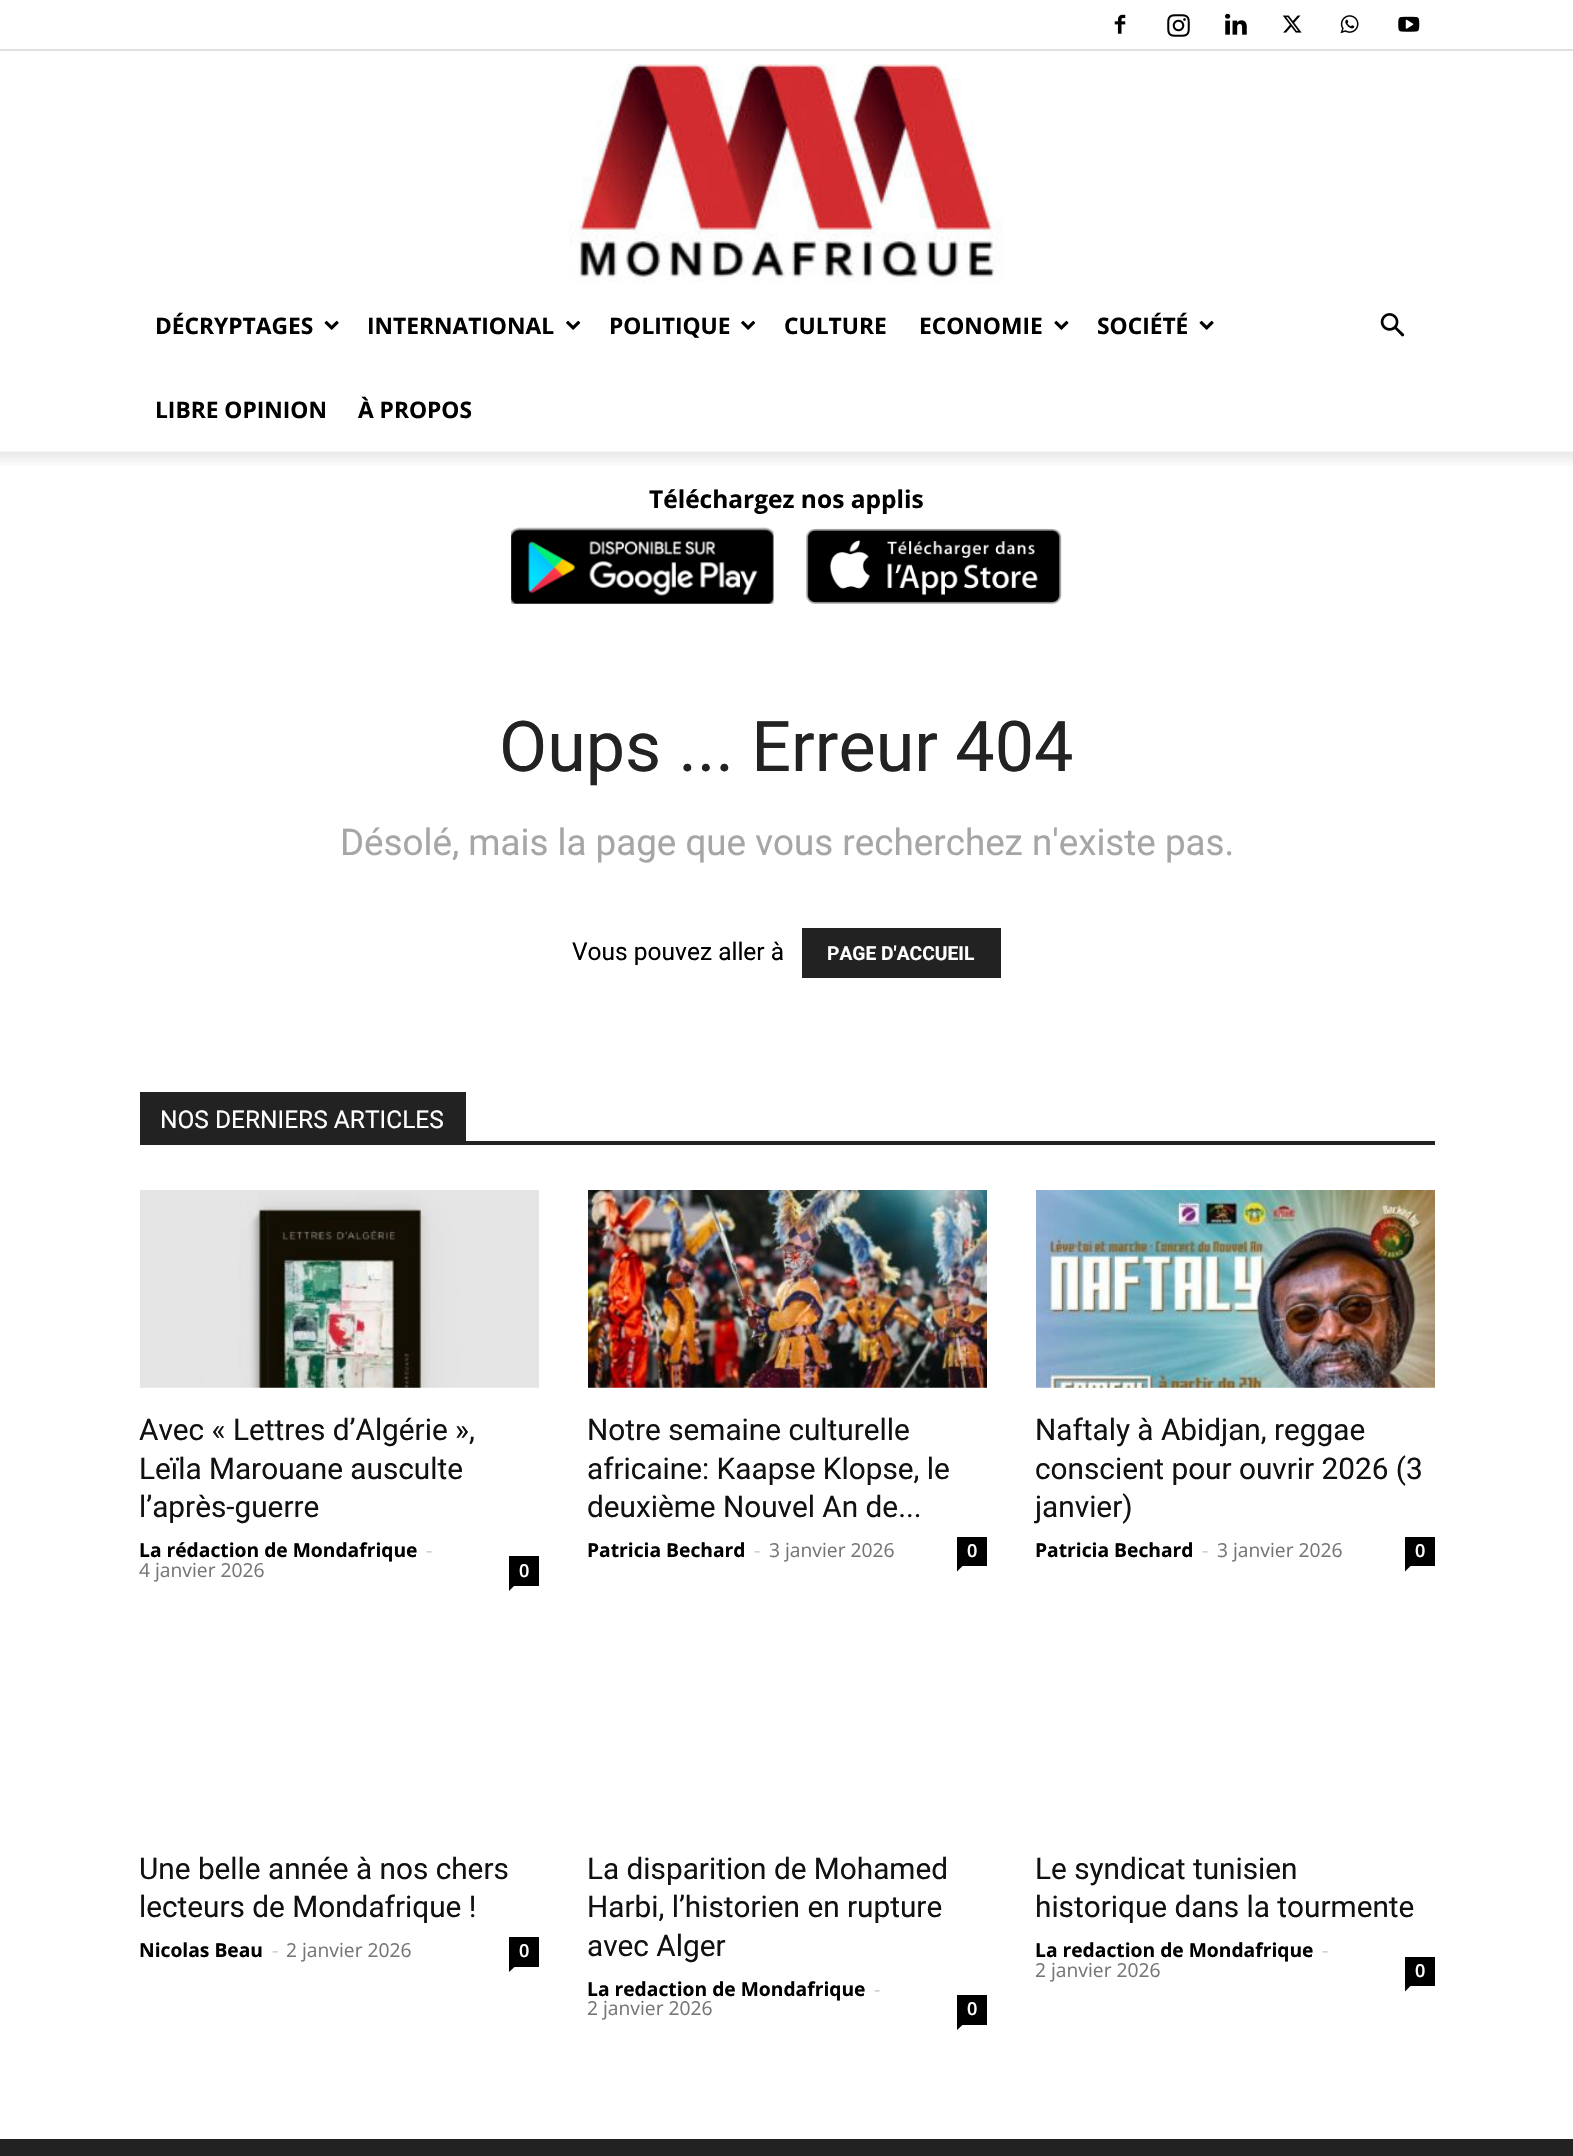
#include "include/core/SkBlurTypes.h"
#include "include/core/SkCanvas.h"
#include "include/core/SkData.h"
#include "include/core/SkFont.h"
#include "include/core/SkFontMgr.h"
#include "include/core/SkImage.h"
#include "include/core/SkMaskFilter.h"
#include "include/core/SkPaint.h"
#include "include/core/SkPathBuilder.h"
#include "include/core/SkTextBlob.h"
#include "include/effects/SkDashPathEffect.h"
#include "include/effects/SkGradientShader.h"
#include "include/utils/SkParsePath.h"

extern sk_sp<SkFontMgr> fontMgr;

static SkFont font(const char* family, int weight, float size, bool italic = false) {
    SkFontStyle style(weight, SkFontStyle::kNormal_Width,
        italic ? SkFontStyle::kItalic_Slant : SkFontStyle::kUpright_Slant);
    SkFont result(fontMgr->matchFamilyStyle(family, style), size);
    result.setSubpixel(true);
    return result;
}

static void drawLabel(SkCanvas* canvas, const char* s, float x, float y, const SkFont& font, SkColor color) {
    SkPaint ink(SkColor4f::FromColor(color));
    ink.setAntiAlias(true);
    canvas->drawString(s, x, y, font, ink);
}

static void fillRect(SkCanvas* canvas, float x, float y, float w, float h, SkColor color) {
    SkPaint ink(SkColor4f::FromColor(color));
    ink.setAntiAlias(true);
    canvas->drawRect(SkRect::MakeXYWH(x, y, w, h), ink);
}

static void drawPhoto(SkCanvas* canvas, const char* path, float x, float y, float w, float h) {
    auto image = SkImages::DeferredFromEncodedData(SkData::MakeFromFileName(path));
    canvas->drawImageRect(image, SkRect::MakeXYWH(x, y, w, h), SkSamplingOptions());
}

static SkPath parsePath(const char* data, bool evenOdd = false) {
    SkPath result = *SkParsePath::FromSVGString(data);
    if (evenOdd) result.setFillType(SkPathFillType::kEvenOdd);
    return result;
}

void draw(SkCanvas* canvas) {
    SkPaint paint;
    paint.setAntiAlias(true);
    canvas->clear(0xFFFFFFFF);
    fillRect(canvas, 0, 49, 1573, 2, 0xFFE0E0E0);
    drawPhoto(canvas, "assets/img1.png", 1114, 14, 12, 20);
    drawPhoto(canvas, "assets/img2.png", 1167, 14, 23, 23);
    drawPhoto(canvas, "assets/img3.png", 1225, 13, 22, 22);
    drawPhoto(canvas, "assets/img4.png", 1282, 15, 20, 18);
    drawPhoto(canvas, "assets/img5.png", 1340, 15, 19, 19);
    drawPhoto(canvas, "assets/img6.png", 1398, 16, 22, 16);
    drawPhoto(canvas, "assets/img7.png", 569, 64, 434, 219);
    SkFont font1 = font("Open Sans", 700, 22.75f);
    drawLabel(canvas, "DÉCRYPTAGES", 155, 334, font1, 0xFF000000);
    drawPhoto(canvas, "assets/img8.png", 324, 320, 15, 10);
    drawLabel(canvas, "INTERNATIONAL", 367, 334, font1, 0xFF000000);
    drawPhoto(canvas, "assets/img9.png", 566, 320, 15, 10);
    drawLabel(canvas, "POLITIQUE", 609, 334, font1, 0xFF000000);
    drawPhoto(canvas, "assets/img9.png", 741, 320, 15, 10);
    drawLabel(canvas, "CULTURE", 784, 334, font1, 0xFF000000);
    drawLabel(canvas, "ECONOMIE", 919, 334, font1, 0xFF000000);
    drawPhoto(canvas, "assets/img10.png", 1054, 320, 15, 10);
    drawLabel(canvas, "SOCIÉTÉ", 1097, 334, font1, 0xFF000000);
    drawPhoto(canvas, "assets/img8.png", 1199, 320, 15, 10);
    drawLabel(canvas, "LIBRE OPINION", 155, 418, font1, 0xFF000000);
    drawLabel(canvas, "À PROPOS", 358, 418, font1, 0xFF000000);
    drawPhoto(canvas, "assets/img11.png", 1380, 313, 25, 24);
    drawPhoto(canvas, "assets/img12.png", 0, 451, 1573, 15);
    SkFont font2 = font("Open Sans", 700, 24.5f);
    drawLabel(canvas, "Téléchargez nos applis", 649, 508, font2, 0xFF000000);
    drawPhoto(canvas, "assets/img13.png", 511, 527, 263, 77);
    drawPhoto(canvas, "assets/img14.png", 806, 528, 256, 76);
    SkFont font3 = font("Roboto", 400, 70);
    drawLabel(canvas, "Oups ... Erreur 404", 499, 771, font3, 0xFF222222);
    SkFont font4 = font("Roboto", 400, 36.75f);
    drawLabel(canvas, "Désolé, mais la page que vous recherchez n'existe pas.", 340, 855, font4, 0xFFA6A6A6);
    SkFont font5 = font("Roboto", 400, 24.5f);
    drawLabel(canvas, "Vous pouvez aller à", 572, 960, font5, 0xFF000000);
    fillRect(canvas, 802, 928, 199, 50, 0xFF222222);
    SkFont font6 = font("Roboto", 700, 19.25f);
    drawLabel(canvas, "PAGE D'ACCUEIL", 827, 960, font6, 0xFFFFFFFF);
    fillRect(canvas, 140, 1141, 1295, 4, 0xFF222222);
    fillRect(canvas, 140, 1092, 326, 49, 0xFF222222);
    drawLabel(canvas, "NOS DERNIERS ARTICLES", 160, 1128, font5, 0xFFFFFFFF);
    drawPhoto(canvas, "assets/img15.png", 140, 1190, 399, 198);
    SkFont font7 = font("Roboto", 400, 29.75f);
    drawLabel(canvas, "Avec « Lettres d’Algérie »,", 139, 1440, font7, 0xFF111111);
    drawLabel(canvas, "Leïla Marouane ausculte", 139, 1479, font7, 0xFF111111);
    drawLabel(canvas, "l’après-guerre", 139, 1517, font7, 0xFF111111);
    SkFont font8 = font("Open Sans", 700, 19.25f);
    drawLabel(canvas, "La rédaction de Mondafrique", 139, 1557, font8, 0xFF000000);
    SkFont font9 = font("Open Sans", 400, 19.25f);
    drawLabel(canvas, "-", 426, 1557, font9, 0xFFCCCCCC);
    drawLabel(canvas, "4 janvier 2026", 139, 1577, font9, 0xFF767676);
    fillRect(canvas, 509, 1556, 30, 30, 0xFF000000);
    SkFont font10 = font("Open Sans", 600, 18);
    drawLabel(canvas, "0", 519, 1577, font10, 0xFFFFFFFF);
    paint.setColor(0xFF000000);
    canvas->drawPath(parsePath("M509 1585.5H514.5L509 1591Z"), paint);
    drawPhoto(canvas, "assets/img16.png", 588, 1190, 399, 198);
    drawLabel(canvas, "Notre semaine culturelle", 587, 1440, font7, 0xFF111111);
    drawLabel(canvas, "africaine: Kaapse Klopse, le", 587, 1479, font7, 0xFF111111);
    drawLabel(canvas, "deuxième Nouvel An de...", 587, 1517, font7, 0xFF111111);
    drawLabel(canvas, "Patricia Bechard", 587, 1557, font8, 0xFF000000);
    drawLabel(canvas, "-", 754, 1557, font9, 0xFFCCCCCC);
    drawLabel(canvas, "3 janvier 2026", 769, 1557, font9, 0xFF767676);
    fillRect(canvas, 957, 1537, 30, 29, 0xFF000000);
    drawLabel(canvas, "0", 967, 1557, font10, 0xFFFFFFFF);
    canvas->drawPath(parsePath("M957 1566H962.5L957 1571.5Z"), paint);
    drawPhoto(canvas, "assets/img17.png", 1036, 1190, 399, 198);
    drawLabel(canvas, "Naftaly à Abidjan, reggae", 1035, 1440, font7, 0xFF111111);
    drawLabel(canvas, "conscient pour ouvrir 2026 (3", 1035, 1479, font7, 0xFF111111);
    drawLabel(canvas, "janvier)", 1035, 1517, font7, 0xFF111111);
    drawLabel(canvas, "Patricia Bechard", 1035, 1557, font8, 0xFF000000);
    drawLabel(canvas, "-", 1202, 1557, font9, 0xFFCCCCCC);
    drawLabel(canvas, "3 janvier 2026", 1217, 1557, font9, 0xFF767676);
    fillRect(canvas, 1405, 1537, 30, 29, 0xFF000000);
    drawLabel(canvas, "0", 1415, 1557, font10, 0xFFFFFFFF);
    canvas->drawPath(parsePath("M1405 1566H1410.5L1405 1571.5Z"), paint);
    drawLabel(canvas, "Une belle année à nos chers", 139, 1879, font7, 0xFF111111);
    drawLabel(canvas, "lecteurs de Mondafrique !", 139, 1917, font7, 0xFF111111);
    drawLabel(canvas, "Nicolas Beau", 139, 1957, font8, 0xFF000000);
    drawLabel(canvas, "-", 272, 1957, font9, 0xFFCCCCCC);
    drawLabel(canvas, "2 janvier 2026", 286, 1957, font9, 0xFF767676);
    fillRect(canvas, 509, 1937, 30, 30, 0xFF000000);
    drawLabel(canvas, "0", 519, 1957, font10, 0xFFFFFFFF);
    canvas->drawPath(parsePath("M509 1967H514.5L509 1972Z"), paint);
    drawLabel(canvas, "La disparition de Mohamed", 587, 1879, font7, 0xFF111111);
    drawLabel(canvas, "Harbi, l’historien en rupture", 587, 1917, font7, 0xFF111111);
    drawLabel(canvas, "avec Alger", 587, 1956, font7, 0xFF111111);
    drawLabel(canvas, "La redaction de Mondafrique", 587, 1996, font8, 0xFF000000);
    drawLabel(canvas, "-", 874, 1996, font9, 0xFFCCCCCC);
    drawLabel(canvas, "2 janvier 2026", 587, 2015, font9, 0xFF767676);
    fillRect(canvas, 957, 1995, 30, 30, 0xFF000000);
    drawLabel(canvas, "0", 967, 2015, font10, 0xFFFFFFFF);
    canvas->drawPath(parsePath("M957 2025H962.5L957 2030Z"), paint);
    drawLabel(canvas, "Le syndicat tunisien", 1035, 1879, font7, 0xFF111111);
    drawLabel(canvas, "historique dans la tourmente", 1035, 1917, font7, 0xFF111111);
    drawLabel(canvas, "La redaction de Mondafrique", 1035, 1957, font8, 0xFF000000);
    drawLabel(canvas, "-", 1322, 1957, font9, 0xFFCCCCCC);
    drawLabel(canvas, "2 janvier 2026", 1035, 1977, font9, 0xFF767676);
    fillRect(canvas, 1405, 1957, 30, 29, 0xFF000000);
    drawLabel(canvas, "0", 1415, 1977, font10, 0xFFFFFFFF);
    canvas->drawPath(parsePath("M1405 1986H1410.5L1405 1991.5Z"), paint);
    fillRect(canvas, 0, 2139, 1573, 17, 0xFF222222);
}
